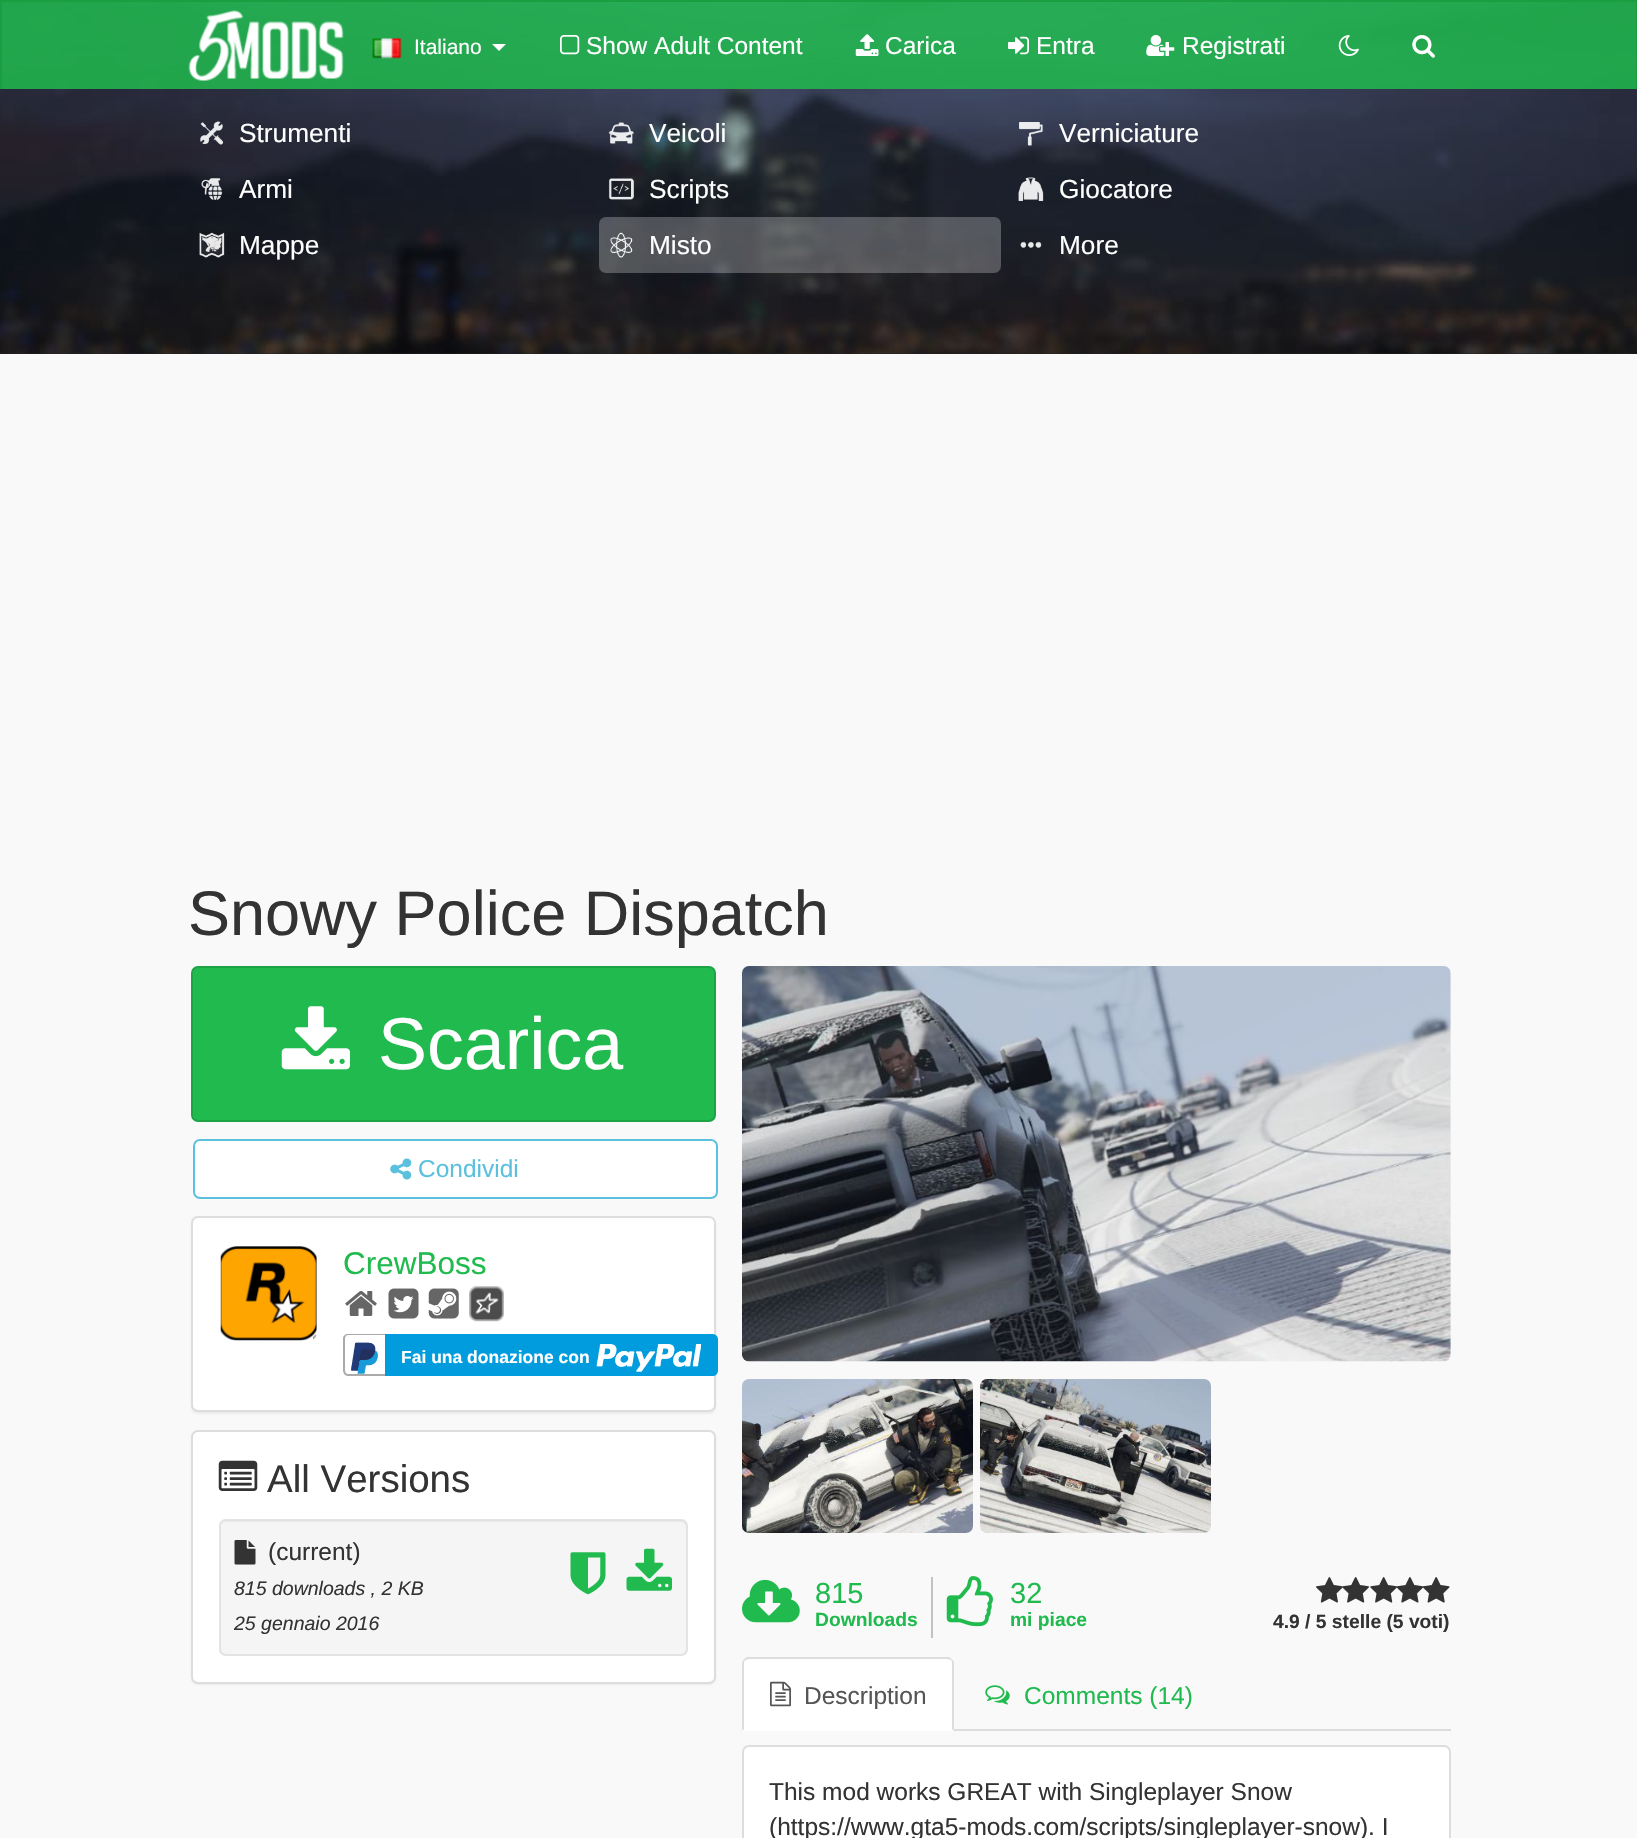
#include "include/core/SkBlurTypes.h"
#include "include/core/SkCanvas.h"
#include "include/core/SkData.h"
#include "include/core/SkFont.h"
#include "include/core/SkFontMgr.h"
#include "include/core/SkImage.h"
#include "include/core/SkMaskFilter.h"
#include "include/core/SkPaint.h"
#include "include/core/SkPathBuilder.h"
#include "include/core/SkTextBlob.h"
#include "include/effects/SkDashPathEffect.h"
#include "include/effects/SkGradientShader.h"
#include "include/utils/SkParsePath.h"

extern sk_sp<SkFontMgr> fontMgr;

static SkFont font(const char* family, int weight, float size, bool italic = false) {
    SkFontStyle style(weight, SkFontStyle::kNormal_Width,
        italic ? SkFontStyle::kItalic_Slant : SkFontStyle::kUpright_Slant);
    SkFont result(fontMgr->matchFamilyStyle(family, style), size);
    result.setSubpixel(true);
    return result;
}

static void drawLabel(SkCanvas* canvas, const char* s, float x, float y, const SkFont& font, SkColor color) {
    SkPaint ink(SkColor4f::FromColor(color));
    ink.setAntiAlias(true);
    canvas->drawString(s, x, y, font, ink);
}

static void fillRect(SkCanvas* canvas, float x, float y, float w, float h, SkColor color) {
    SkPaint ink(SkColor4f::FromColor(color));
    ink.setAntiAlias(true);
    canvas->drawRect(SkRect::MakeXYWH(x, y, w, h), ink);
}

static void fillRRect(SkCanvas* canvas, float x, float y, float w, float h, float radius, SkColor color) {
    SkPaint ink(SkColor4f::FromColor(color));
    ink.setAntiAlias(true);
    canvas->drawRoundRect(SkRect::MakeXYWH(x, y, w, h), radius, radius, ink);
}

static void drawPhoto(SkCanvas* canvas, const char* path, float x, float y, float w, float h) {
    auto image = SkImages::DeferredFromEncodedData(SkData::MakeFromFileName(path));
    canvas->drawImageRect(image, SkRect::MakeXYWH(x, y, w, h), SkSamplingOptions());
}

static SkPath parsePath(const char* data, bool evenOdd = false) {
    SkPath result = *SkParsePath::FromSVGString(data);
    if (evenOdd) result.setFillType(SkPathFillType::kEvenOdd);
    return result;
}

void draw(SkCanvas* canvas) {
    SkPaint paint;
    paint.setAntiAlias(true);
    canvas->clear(0xFFF9F9F9);
    fillRect(canvas, 0, 353, 1637, 1, 0xFF222222);
    drawPhoto(canvas, "assets/img9.png", 0, 2, 1637, 352);
    fillRect(canvas, 2, 2, 1634, 87, 0xD920BA4E);
    fillRect(canvas, 0, 0, 1637, 2, 0xFF1B9E42);
    fillRect(canvas, 1636, 0, 1, 89, 0xFF1B9E42);
    fillRect(canvas, 0, 0, 2, 89, 0xFF1B9E42);
    drawPhoto(canvas, "assets/img1.png", 188, 10, 156, 71);
    drawPhoto(canvas, "assets/img2.png", 372, 38, 30, 21);
    SkFont font1 = font("Liberation Sans", 400, 21);
    drawLabel(canvas, "Italiano", 414, 54, font1, 0xFFFFFFFF);
    paint.setColor(0xFFFFFFFF);
    canvas->drawPath(parsePath("M492 44H506L499 51Z"), paint);
    drawPhoto(canvas, "assets/img3.png", 560, 35, 20, 20);
    SkFont font2 = font("Liberation Sans", 400, 24.5f);
    drawLabel(canvas, "Show Adult Content", 586, 54, font2, 0xFFFFFFFF);
    drawPhoto(canvas, "assets/img4.png", 855, 34, 24, 22);
    drawLabel(canvas, "Carica", 885, 54, font2, 0xFFFFFFFF);
    drawPhoto(canvas, "assets/img5.png", 1008, 36, 21, 19);
    drawLabel(canvas, "Entra", 1036, 54, font2, 0xFFFFFFFF);
    drawPhoto(canvas, "assets/img6.png", 1146, 35, 29, 21);
    drawLabel(canvas, "Registrati", 1182, 54, font2, 0xFFFFFFFF);
    drawPhoto(canvas, "assets/img7.png", 1338, 35, 21, 21);
    drawPhoto(canvas, "assets/img8.png", 1412, 35, 23, 23);
    drawPhoto(canvas, "assets/img10.png", 200, 121, 23, 24);
    SkFont font3 = font("Liberation Sans", 400, 26.25f);
    drawLabel(canvas, "Strumenti", 239, 142, font3, 0xFFFFFFFF);
    drawPhoto(canvas, "assets/img11.png", 608, 122, 26, 22);
    drawLabel(canvas, "Veicoli", 649, 142, font3, 0xFFFFFFFF);
    drawPhoto(canvas, "assets/img12.png", 1019, 122, 24, 24);
    drawLabel(canvas, "Verniciature", 1059, 142, font3, 0xFFFFFFFF);
    drawPhoto(canvas, "assets/img13.png", 201, 178, 22, 22);
    drawLabel(canvas, "Armi", 239, 198, font3, 0xFFFFFFFF);
    drawPhoto(canvas, "assets/img14.png", 608, 178, 26, 22);
    drawLabel(canvas, "Scripts", 649, 198, font3, 0xFFFFFFFF);
    drawPhoto(canvas, "assets/img15.png", 1018, 177, 26, 24);
    drawLabel(canvas, "Giocatore", 1059, 198, font3, 0xFFFFFFFF);
    drawPhoto(canvas, "assets/img16.png", 199, 232, 26, 26);
    drawLabel(canvas, "Mappe", 239, 254, font3, 0xFFFFFFFF);
    fillRRect(canvas, 599, 217, 402, 56, 7, 0x40FFFFFF);
    drawPhoto(canvas, "assets/img17.png", 610, 232, 23, 26);
    drawLabel(canvas, "Misto", 649, 254, font3, 0xFFFFFFFF);
    drawPhoto(canvas, "assets/img18.png", 1020, 241, 22, 7);
    drawLabel(canvas, "More", 1059, 254, font3, 0xFFFFFFFF);
    SkFont font4 = font("Liberation Sans", 400, 63);
    drawLabel(canvas, "Snowy Police Dispatch", 188, 935, font4, 0xFF333333);
    paint.setColor(0xFF20BA4E);
    canvas->drawRoundRect(SkRect::MakeXYWH(192, 967, 523, 154), 6, 6, paint);
    paint.setStroke(true);
    paint.setStrokeWidth(2);
    paint.setColor(0xFF1CA445);
    canvas->drawRoundRect(SkRect::MakeXYWH(192, 967, 523, 154), 6, 6, paint);
    drawPhoto(canvas, "assets/img19.png", 281, 1006, 69, 64);
    SkFont font5 = font("Liberation Sans", 400, 73.5f);
    drawLabel(canvas, "Scarica", 378, 1069, font5, 0xFFFFFFFF);
    paint.setStroke(false);
    paint.setColor(0xFFFFFFFF);
    canvas->drawRoundRect(SkRect::MakeXYWH(194, 1140, 523, 58), 6, 6, paint);
    paint.setStroke(true);
    paint.setColor(0xFF5BC0DE);
    canvas->drawRoundRect(SkRect::MakeXYWH(194, 1140, 523, 58), 6, 6, paint);
    drawPhoto(canvas, "assets/img20.png", 390, 1158, 22, 22);
    drawLabel(canvas, "Condividi", 418, 1177, font2, 0xFF5BC0DE);
    paint.setStroke(false);
    paint.setColor(0x0D000000);
    paint.setMaskFilter(SkMaskFilter::MakeBlur(kNormal_SkBlurStyle, 1));
    canvas->drawRoundRect(SkRect::MakeXYWH(191, 1218, 525, 196), 7, 7, paint);
    paint.setMaskFilter(nullptr);
    paint.setColor(0xFFFFFFFF);
    canvas->drawRoundRect(SkRect::MakeXYWH(192, 1217, 523, 194), 6, 6, paint);
    paint.setStroke(true);
    paint.setColor(0xFFDDDDDD);
    canvas->drawRoundRect(SkRect::MakeXYWH(192, 1217, 523, 194), 6, 6, paint);
    drawPhoto(canvas, "assets/img21.png", 220, 1246, 97, 95);
    SkFont font6 = font("Liberation Sans", 400, 31.5f);
    drawLabel(canvas, "CrewBoss", 343, 1274, font6, 0xFF20BA4E);
    drawPhoto(canvas, "assets/img22.png", 345, 1291, 32, 25);
    drawPhoto(canvas, "assets/img23.png", 388, 1288, 31, 31);
    drawPhoto(canvas, "assets/img24.png", 428, 1288, 31, 31);
    drawPhoto(canvas, "assets/img25.png", 469, 1286, 35, 36);
    paint.setStroke(false);
    paint.setColor(0xFFAAAAAA);
    canvas->drawPath(parsePath("M348 1334H385V1376H348C345 1376 343 1373 343 1370V1339C343 1336 345 1334 348 1334ZM348 1335H385V1374H348C346 1374 345 1372 345 1370V1339C345 1337 346 1335 348 1335Z", true), paint);
    drawPhoto(canvas, "assets/img26.png", 351, 1342, 27, 32);
    paint.setColor(0xFF009CDE);
    canvas->drawPath(parsePath("M386 1335H713C715 1335 717 1337 717 1339V1371C717 1373 715 1375 713 1375H386Z"), paint);
    paint.setStroke(true);
    canvas->drawPath(parsePath("M386 1335H713C715 1335 717 1337 717 1339V1371C717 1373 715 1375 713 1375H386Z"), paint);
    SkFont font7 = font("Liberation Sans", 700, 17.5f);
    drawLabel(canvas, "Fai una donazione con", 401, 1363, font7, 0xFFFFFFFF);
    drawPhoto(canvas, "assets/img27.png", 596, 1344, 106, 28);
    paint.setStroke(false);
    paint.setColor(0x0D000000);
    paint.setMaskFilter(SkMaskFilter::MakeBlur(kNormal_SkBlurStyle, 1));
    canvas->drawRoundRect(SkRect::MakeXYWH(191, 1432, 525, 253), 7, 7, paint);
    paint.setMaskFilter(nullptr);
    paint.setColor(0xFFFFFFFF);
    canvas->drawRoundRect(SkRect::MakeXYWH(192, 1431, 523, 252), 6, 6, paint);
    paint.setStroke(true);
    paint.setColor(0xFFDDDDDD);
    canvas->drawRoundRect(SkRect::MakeXYWH(192, 1431, 523, 252), 6, 6, paint);
    drawPhoto(canvas, "assets/img28.png", 218, 1460, 40, 31);
    SkFont font8 = font("Liberation Sans", 400, 38.5f);
    drawLabel(canvas, "All Versions", 267, 1492, font8, 0xFF333333);
    fillRRect(canvas, 219, 1519, 469, 137, 7, 0xFFF5F5F5);
    paint.setStroke(false);
    paint.setColor(0xFFE9E9E9);
    canvas->drawPath(parsePath("M226 1522H681C684 1522 686 1525 686 1528V1526C686 1523 684 1521 681 1521H226C224 1521 222 1523 221 1525C222 1523 224 1522 226 1522Z"), paint);
    paint.setStroke(true);
    paint.setColor(0xFFE3E3E3);
    canvas->drawRoundRect(SkRect::MakeXYWH(220, 1520, 467, 135), 6, 6, paint);
    drawPhoto(canvas, "assets/img29.png", 234, 1540, 22, 25);
    drawLabel(canvas, "(current)", 268, 1560, font2, 0xFF333333);
    SkFont font9 = font("Liberation Sans", 400, 19.5f, true);
    drawLabel(canvas, "815 downloads , 2 KB", 234, 1595, font9, 0xFF333333);
    drawLabel(canvas, "25 gennaio 2016", 234, 1630, font9, 0xFF333333);
    drawPhoto(canvas, "assets/img30.png", 570, 1552, 36, 43);
    drawPhoto(canvas, "assets/img31.png", 626, 1548, 46, 43);
    drawPhoto(canvas, "assets/img32.png", 742, 966, 709, 396);
    drawPhoto(canvas, "assets/img33.png", 742, 1379, 231, 154);
    drawPhoto(canvas, "assets/img34.png", 980, 1379, 231, 154);
    drawPhoto(canvas, "assets/img35.png", 742, 1579, 58, 44);
    fillRect(canvas, 931, 1577, 2, 61, 0xFFC2C2C2);
    SkFont font10 = font("Liberation Sans", 400, 29);
    drawLabel(canvas, "815", 815, 1603, font10, 0xFF20BA4E);
    SkFont font11 = font("Liberation Sans", 700, 19.25f);
    drawLabel(canvas, "Downloads", 815, 1626, font11, 0xFF20BA4E);
    drawPhoto(canvas, "assets/img36.png", 946, 1576, 47, 51);
    drawLabel(canvas, "32", 1010, 1603, font10, 0xFF20BA4E);
    drawLabel(canvas, "mi piace", 1010, 1626, font11, 0xFF20BA4E);
    drawPhoto(canvas, "assets/img37.png", 1316, 1577, 27, 26);
    drawPhoto(canvas, "assets/img38.png", 1342, 1577, 27, 26);
    drawPhoto(canvas, "assets/img39.png", 1370, 1577, 27, 26);
    drawPhoto(canvas, "assets/img40.png", 1396, 1577, 28, 26);
    drawPhoto(canvas, "assets/img41.png", 1422, 1577, 28, 26);
    drawLabel(canvas, "4.9 / 5 stelle (5 voti)", 1273, 1628, font11, 0xFF333333);
    fillRect(canvas, 954, 1729, 497, 2, 0xFFDDDDDD);
    paint.setStroke(false);
    paint.setColor(0xFFFFFFFF);
    canvas->drawPath(parsePath("M749 1657H947C951 1657 954 1660 954 1664V1731H742V1664C742 1660 745 1657 749 1657Z"), paint);
    paint.setColor(0xFFDDDDDD);
    canvas->drawPath(parsePath("M749 1659C747 1659 746 1660 745 1661L744 1659L747 1657H949L952 1659L951 1660C950 1660 948 1659 947 1659Z"), paint);
    canvas->drawPath(parsePath("M952 1659L954 1662V1731L952 1729V1664C952 1662 952 1661 951 1660Z"), paint);
    canvas->drawPath(parsePath("M742 1731L744 1729V1664C744 1663 744 1661 745 1661L744 1659C743 1660 742 1662 742 1664Z"), paint);
    drawPhoto(canvas, "assets/img42.png", 770, 1681, 21, 26);
    drawLabel(canvas, "Description", 804, 1704, font2, 0xFF555555);
    drawPhoto(canvas, "assets/img43.png", 985, 1685, 25, 20);
    drawLabel(canvas, "Comments (14)", 1024, 1704, font2, 0xFF20BA4E);
    paint.setColor(0xFFFFFFFF);
    canvas->drawRoundRect(SkRect::MakeXYWH(743, 1746, 707, 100), 6, 6, paint);
    paint.setStroke(true);
    paint.setColor(0xFFDDDDDD);
    canvas->drawRoundRect(SkRect::MakeXYWH(743, 1746, 707, 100), 6, 6, paint);
    drawLabel(canvas, "This mod works GREAT with Singleplayer Snow", 769, 1800, font2, 0xFF333333);
    drawLabel(canvas, "(https://www.gta5-mods.com/scripts/singleplayer-snow). I", 769, 1835, font2, 0xFF333333);
}
